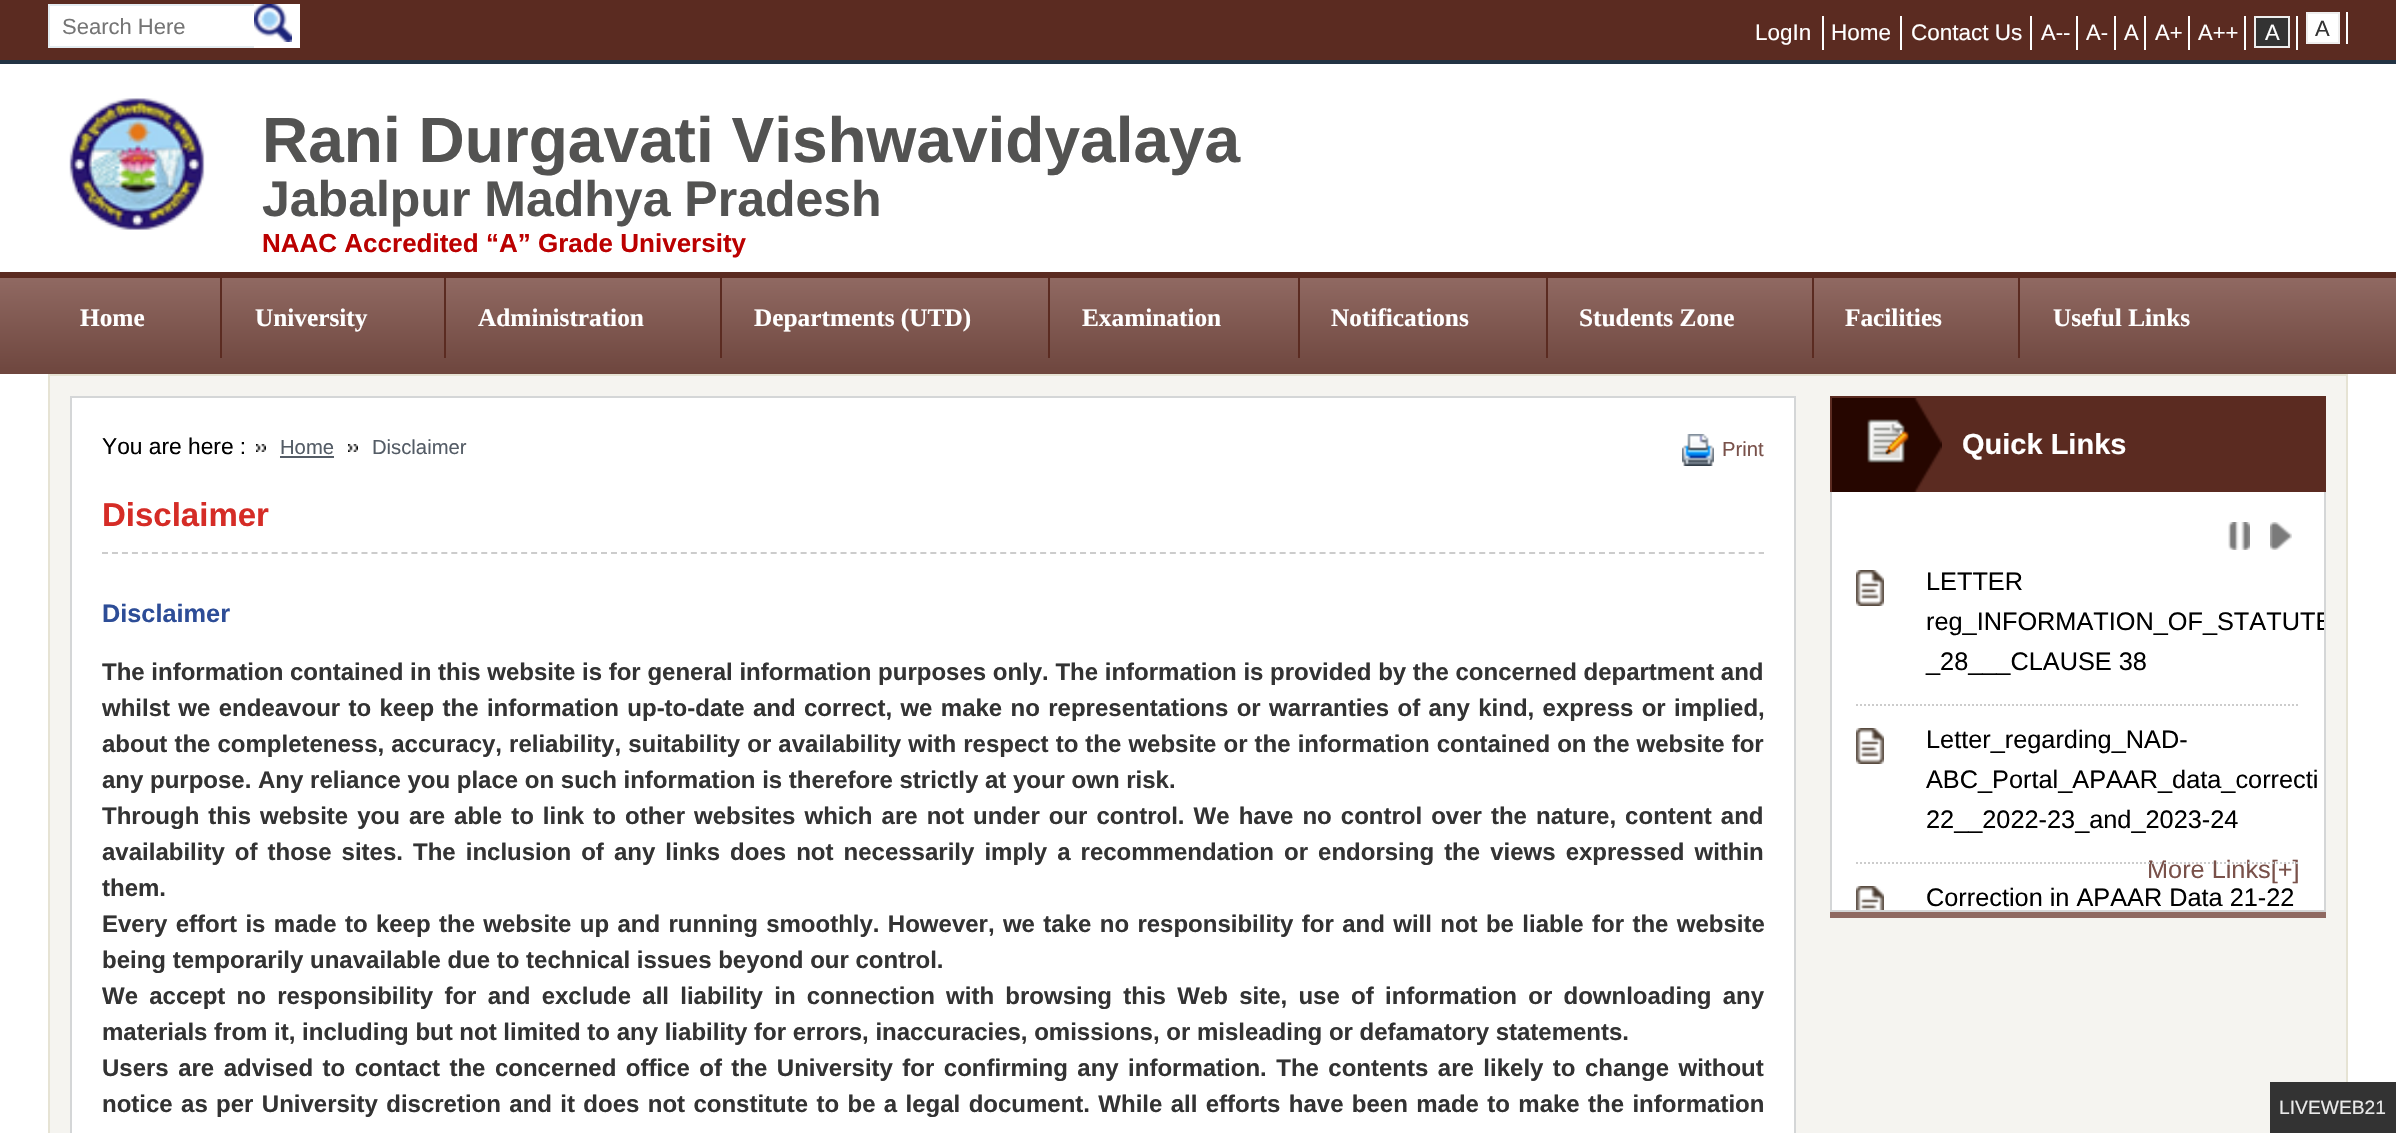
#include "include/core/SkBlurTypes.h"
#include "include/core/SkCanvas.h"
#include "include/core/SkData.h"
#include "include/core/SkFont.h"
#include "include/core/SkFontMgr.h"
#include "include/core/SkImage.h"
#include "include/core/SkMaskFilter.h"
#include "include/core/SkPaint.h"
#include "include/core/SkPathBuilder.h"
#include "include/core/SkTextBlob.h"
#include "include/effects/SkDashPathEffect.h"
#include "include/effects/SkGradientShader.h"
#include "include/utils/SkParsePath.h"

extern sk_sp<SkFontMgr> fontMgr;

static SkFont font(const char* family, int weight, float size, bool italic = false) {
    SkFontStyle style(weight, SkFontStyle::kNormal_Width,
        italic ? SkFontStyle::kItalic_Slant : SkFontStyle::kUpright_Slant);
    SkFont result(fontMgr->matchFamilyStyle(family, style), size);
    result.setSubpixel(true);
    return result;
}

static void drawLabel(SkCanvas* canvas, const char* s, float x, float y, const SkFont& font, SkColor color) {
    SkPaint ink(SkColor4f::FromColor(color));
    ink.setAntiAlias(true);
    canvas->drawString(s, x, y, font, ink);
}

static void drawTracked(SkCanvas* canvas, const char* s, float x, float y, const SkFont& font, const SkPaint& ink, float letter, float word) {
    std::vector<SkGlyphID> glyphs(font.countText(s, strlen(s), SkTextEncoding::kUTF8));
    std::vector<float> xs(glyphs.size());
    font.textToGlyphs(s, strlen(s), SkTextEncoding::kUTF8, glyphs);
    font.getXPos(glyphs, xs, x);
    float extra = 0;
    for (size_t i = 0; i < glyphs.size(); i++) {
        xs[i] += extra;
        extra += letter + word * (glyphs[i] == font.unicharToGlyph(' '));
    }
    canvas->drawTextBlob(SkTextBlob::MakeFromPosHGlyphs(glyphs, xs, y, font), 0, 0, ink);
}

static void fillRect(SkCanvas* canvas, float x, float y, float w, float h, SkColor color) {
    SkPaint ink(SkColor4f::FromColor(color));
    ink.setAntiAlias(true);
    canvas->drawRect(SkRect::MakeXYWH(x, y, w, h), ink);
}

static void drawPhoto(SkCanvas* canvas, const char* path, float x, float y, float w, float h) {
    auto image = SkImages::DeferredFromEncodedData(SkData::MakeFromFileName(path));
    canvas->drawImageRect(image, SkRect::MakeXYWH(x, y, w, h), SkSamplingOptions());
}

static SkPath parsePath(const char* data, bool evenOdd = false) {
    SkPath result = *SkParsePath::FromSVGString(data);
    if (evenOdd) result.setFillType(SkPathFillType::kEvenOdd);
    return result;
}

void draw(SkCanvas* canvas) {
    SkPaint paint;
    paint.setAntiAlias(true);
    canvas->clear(0xFFFFFFFF);
    fillRect(canvas, 0, 0, 2396, 60, 0xFF5B2B21);
    fillRect(canvas, 0, 60, 2396, 4, 0xFF223344);
    fillRect(canvas, 50, 6, 204, 40, 0xFFFFFFFF);
    fillRect(canvas, 48, 4, 206, 2, 0xFFE3ECF1);
    fillRect(canvas, 48, 46, 206, 2, 0xFFE3ECF1);
    fillRect(canvas, 48, 4, 2, 44, 0xFFE3ECF1);
    SkFont font1 = font("Liberation Sans", 400, 22);
    drawLabel(canvas, "Search Here", 62, 34, font1, 0xFF757575);
    fillRect(canvas, 254, 4, 46, 44, 0xFFFFFFFF);
    drawPhoto(canvas, "assets/img1.png", 254, 4, 38, 38);
    fillRect(canvas, 1822, 16, 2, 34, 0xFFFFFFFF);
    SkFont font2 = font("Liberation Sans", 400, 22.5f);
    drawLabel(canvas, "LogIn", 1755, 40, font2, 0xFFFFFFFF);
    fillRect(canvas, 1900, 16, 2, 34, 0xFFFFFFFF);
    drawLabel(canvas, "Home", 1831, 40, font2, 0xFFFFFFFF);
    fillRect(canvas, 2030, 16, 2, 34, 0xFFFFFFFF);
    drawLabel(canvas, "Contact Us", 1911, 40, font2, 0xFFFFFFFF);
    fillRect(canvas, 2076, 16, 2, 34, 0xFFFFFFFF);
    drawLabel(canvas, "A--", 2041, 40, font1, 0xFFFFFFFF);
    fillRect(canvas, 2114, 16, 2, 34, 0xFFFFFFFF);
    drawLabel(canvas, "A-", 2086, 40, font1, 0xFFFFFFFF);
    fillRect(canvas, 2144, 16, 2, 34, 0xFFFFFFFF);
    drawLabel(canvas, "A", 2124, 40, font1, 0xFFFFFFFF);
    fillRect(canvas, 2188, 16, 2, 34, 0xFFFFFFFF);
    drawLabel(canvas, "A+", 2155, 40, font1, 0xFFFFFFFF);
    fillRect(canvas, 2244, 16, 2, 34, 0xFFFFFFFF);
    drawLabel(canvas, "A++", 2198, 40, font1, 0xFFFFFFFF);
    fillRect(canvas, 2296, 16, 2, 34, 0xFFFFFFFF);
    paint.setColor(0xFF333333);
    canvas->drawRect(SkRect::MakeXYWH(2255, 17, 34, 30), paint);
    paint.setStroke(true);
    paint.setStrokeWidth(2);
    paint.setColor(0xFFEEEEEE);
    canvas->drawRect(SkRect::MakeXYWH(2255, 17, 34, 30), paint);
    drawLabel(canvas, "A", 2265, 40, font1, 0xFFFFFFFF);
    fillRect(canvas, 2346, 12, 2, 32, 0xFFFFFFFF);
    paint.setStroke(false);
    paint.setColor(0xFFFFFFFF);
    canvas->drawRect(SkRect::MakeXYWH(2307, 13, 32, 30), paint);
    paint.setStroke(true);
    paint.setColor(0xFFEEEEEE);
    canvas->drawRect(SkRect::MakeXYWH(2307, 13, 32, 30), paint);
    drawLabel(canvas, "A", 2315, 36, font1, 0xFF333333);
    drawPhoto(canvas, "assets/img2.png", 69, 98, 136, 132);
    SkFont font3 = font("Liberation Sans", 700, 64);
    drawLabel(canvas, "Rani Durgavati Vishwavidyalaya", 262, 162, font3, 0xFF535352);
    SkFont font4 = font("Liberation Sans", 700, 50);
    drawLabel(canvas, "Jabalpur Madhya Pradesh", 262, 216, font4, 0xFF535352);
    SkFont font5 = font("Liberation Sans", 700, 26);
    drawLabel(canvas, "NAAC Accredited “A” Grade University", 262, 252, font5, 0xFFBB0000);
    paint.setStroke(false);
    {
        const SkColor colors[] = {0xFF906962, 0xFF6E463E};
        const float stops[] = {0, 1};
        const SkPoint ends[] = {{1198, 278}, {1198, 374}};
        paint.setShader(SkGradientShader::MakeLinear(ends, colors, stops, 2, SkTileMode::kClamp));
        paint.setAlpha(255);
    }
    canvas->drawRect(SkRect::MakeXYWH(0, 278, 2396, 96), paint);
    fillRect(canvas, 0, 272, 2396, 6, 0xFF5B2B21);
    SkFont font6 = font("Liberation Serif", 700, 25.3f);
    drawLabel(canvas, "Home", 80, 326, font6, 0xFFFFFFFF);
    fillRect(canvas, 220, 278, 2, 80, 0xFF5B2B21);
    drawLabel(canvas, "University", 255, 326, font6, 0xFFFFFFFF);
    fillRect(canvas, 444, 278, 2, 80, 0xFF5B2B21);
    drawLabel(canvas, "Administration", 478, 326, font6, 0xFFFFFFFF);
    fillRect(canvas, 720, 278, 2, 80, 0xFF5B2B21);
    drawLabel(canvas, "Departments (UTD)", 754, 326, font6, 0xFFFFFFFF);
    fillRect(canvas, 1048, 278, 2, 80, 0xFF5B2B21);
    drawLabel(canvas, "Examination", 1082, 326, font6, 0xFFFFFFFF);
    fillRect(canvas, 1298, 278, 2, 80, 0xFF5B2B21);
    drawLabel(canvas, "Notifications", 1331, 326, font6, 0xFFFFFFFF);
    fillRect(canvas, 1546, 278, 2, 80, 0xFF5B2B21);
    drawLabel(canvas, "Students Zone", 1579, 326, font6, 0xFFFFFFFF);
    fillRect(canvas, 1812, 278, 2, 80, 0xFF5B2B21);
    drawLabel(canvas, "Facilities", 1845, 326, font6, 0xFFFFFFFF);
    fillRect(canvas, 2018, 278, 2, 80, 0xFF5B2B21);
    drawLabel(canvas, "Useful Links", 2053, 326, font6, 0xFFFFFFFF);
    paint.setShader(nullptr);
    paint.setColor(0xFFF5F4F0);
    canvas->drawRect(SkRect::MakeXYWH(49, 375, 2298, 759), paint);
    paint.setStroke(true);
    paint.setColor(0xFFE6E3D4);
    canvas->drawRect(SkRect::MakeXYWH(49, 375, 2298, 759), paint);
    paint.setStroke(false);
    paint.setColor(0xFFFFFFFF);
    canvas->drawRect(SkRect::MakeXYWH(71, 397, 1724, 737), paint);
    paint.setStroke(true);
    paint.setColor(0xFFD4D6D7);
    canvas->drawRect(SkRect::MakeXYWH(71, 397, 1724, 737), paint);
    SkFont font7 = font("Liberation Sans", 400, 22.75f);
    drawLabel(canvas, "You are here :", 102, 454, font7, 0xFF000000);
    drawPhoto(canvas, "assets/img3.png", 256, 444, 10, 8);
    SkFont font8 = font("Liberation Sans", 400, 20.25f);
    drawLabel(canvas, "Home", 280, 454, font8, 0xFF545C66);
    fillRect(canvas, 280, 456, 54, 2, 0xFF545C66);
    drawPhoto(canvas, "assets/img3.png", 348, 444, 10, 8);
    drawLabel(canvas, "Disclaimer", 372, 454, font8, 0xFF545C66);
    drawPhoto(canvas, "assets/img4.png", 1682, 434, 32, 32);
    drawLabel(canvas, "Print", 1722, 456, font8, 0xFF79514A);
    paint.setColor(0xFFCCCCCC);
    paint.setPathEffect(SkDashPathEffect::Make({{6, 3.98f}}, 0));
    canvas->drawPath(parsePath("M102 553H1764"), paint);
    paint.setPathEffect(nullptr);
    SkFont font9 = font("Liberation Sans", 700, 33);
    drawLabel(canvas, "Disclaimer", 102, 526, font9, 0xFFD52C26);
    SkFont font10 = font("Liberation Sans", 700, 25.3f);
    drawLabel(canvas, "Disclaimer", 102, 622, font10, 0xFF2D4D97);
    SkFont font11 = font("Liberation Sans", 700, 24);
    drawLabel(canvas, "The information contained in this website is for general information purposes only. The information is provided by the concerned department and", 102, 680, font11, 0xFF333333);
    paint.setStroke(false);
    paint.setColor(0xFF333333);
    drawTracked(canvas, "whilst we endeavour to keep the information up-to-date and correct, we make no representations or warranties of any kind, express or implied,", 102, 716, font11, paint, 0, 1.7f);
    drawTracked(canvas, "about the completeness, accuracy, reliability, suitability or availability with respect to the website or the information contained on the website for", 102, 752, font11, paint, 0, 0.4f);
    drawLabel(canvas, "any purpose. Any reliance you place on such information is therefore strictly at your own risk.", 102, 788, font11, 0xFF333333);
    drawTracked(canvas, "Through this website you are able to link to other websites which are not under our control. We have no control over the nature, content and", 102, 824, font11, paint, 0, 2.4f);
    drawTracked(canvas, "availability of those sites. The inclusion of any links does not necessarily imply a recommendation or endorsing the views expressed within", 102, 860, font11, paint, 0, 3.4f);
    drawLabel(canvas, "them.", 102, 896, font11, 0xFF333333);
    drawTracked(canvas, "Every effort is made to keep the website up and running smoothly. However, we take no responsibility for and will not be liable for the website", 102, 932, font11, paint, 0, 1.7f);
    drawLabel(canvas, "being temporarily unavailable due to technical issues beyond our control.", 102, 968, font11, 0xFF333333);
    drawTracked(canvas, "We accept no responsibility for and exclude all liability in connection with browsing this Web site, use of information or downloading any", 102, 1004, font11, paint, 0, 4.6f);
    drawLabel(canvas, "materials from it, including but not limited to any liability for errors, inaccuracies, omissions, or misleading or defamatory statements.", 102, 1040, font11, 0xFF333333);
    drawTracked(canvas, "Users are advised to contact the concerned office of the University for confirming any information. The contents are likely to change without", 102, 1076, font11, paint, 0, 2.8f);
    drawTracked(canvas, "notice as per University discretion and it does not constitute to be a legal document. While all efforts have been made to make the information", 102, 1112, font11, paint, 0, 1.7f);
    fillRect(canvas, 1830, 912, 496, 6, 0xFF8F6961);
    fillRect(canvas, 1830, 396, 496, 96, 0xFF5B2B21);
    fillRect(canvas, 1832, 398, 82, 94, 0xFF260600);
    drawPhoto(canvas, "assets/img5.png", 1914, 398, 28, 94);
    drawPhoto(canvas, "assets/img6.png", 1867, 419, 42, 45);
    SkFont font12 = font("Liberation Sans", 700, 29);
    drawLabel(canvas, "Quick Links", 1962, 454, font12, 0xFFFFFFFF);
    fillRect(canvas, 1832, 492, 492, 418, 0xFFFFFFFF);
    fillRect(canvas, 2324, 492, 2, 420, 0xFFD4D6D7);
    fillRect(canvas, 1830, 910, 496, 2, 0xFFD4D6D7);
    fillRect(canvas, 1830, 492, 2, 420, 0xFFD4D6D7);
    drawPhoto(canvas, "assets/img7.png", 2228, 522, 22, 28);
    drawPhoto(canvas, "assets/img8.png", 2270, 522, 22, 28);
    paint.setStroke(true);
    paint.setColor(0xFFCCCCCC);
    paint.setPathEffect(SkDashPathEffect::Make({{2, 2}}, 0));
    canvas->drawPath(parsePath("M1856 705H2300"), paint);
    paint.setPathEffect(nullptr);
    drawPhoto(canvas, "assets/img9.png", 1856, 570, 28, 36);
    SkFont font13 = font("Liberation Sans", 400, 25.3f);
    drawLabel(canvas, "LETTER", 1926, 590, font13, 0xFF000000);
    canvas->save();
    canvas->clipRect(SkRect::MakeXYWH(1832, 492, 492, 418));
    drawLabel(canvas, "reg_INFORMATION_OF_STATUTE", 1926, 630, font13, 0xFF000000);
    canvas->restore();
    drawLabel(canvas, "_28___CLAUSE 38", 1926, 670, font13, 0xFF000000);
    drawLabel(canvas, "More Links[+]", 2147, 878, font13, 0xFF79514A);
    paint.setPathEffect(SkDashPathEffect::Make({{2, 2}}, 0));
    canvas->drawPath(parsePath("M1856 863H2300"), paint);
    paint.setPathEffect(nullptr);
    drawPhoto(canvas, "assets/img9.png", 1856, 728, 28, 36);
    drawLabel(canvas, "Letter_regarding_NAD-", 1926, 748, font13, 0xFF000000);
    drawLabel(canvas, "ABC_Portal_APAAR_data_correcti", 1926, 788, font13, 0xFF000000);
    drawLabel(canvas, "22__2022-23_and_2023-24", 1926, 828, font13, 0xFF000000);
    drawPhoto(canvas, "assets/img10.png", 1856, 886, 28, 24);
    drawLabel(canvas, "Correction in APAAR Data 21-22", 1926, 906, font13, 0xFF000000);
    fillRect(canvas, 2270, 1082, 126, 51, 0xFF333333);
    SkFont font14 = font("Liberation Sans", 400, 19.25f);
    drawLabel(canvas, "LIVEWEB21", 2279, 1114, font14, 0xFFEAEAEA);
}
